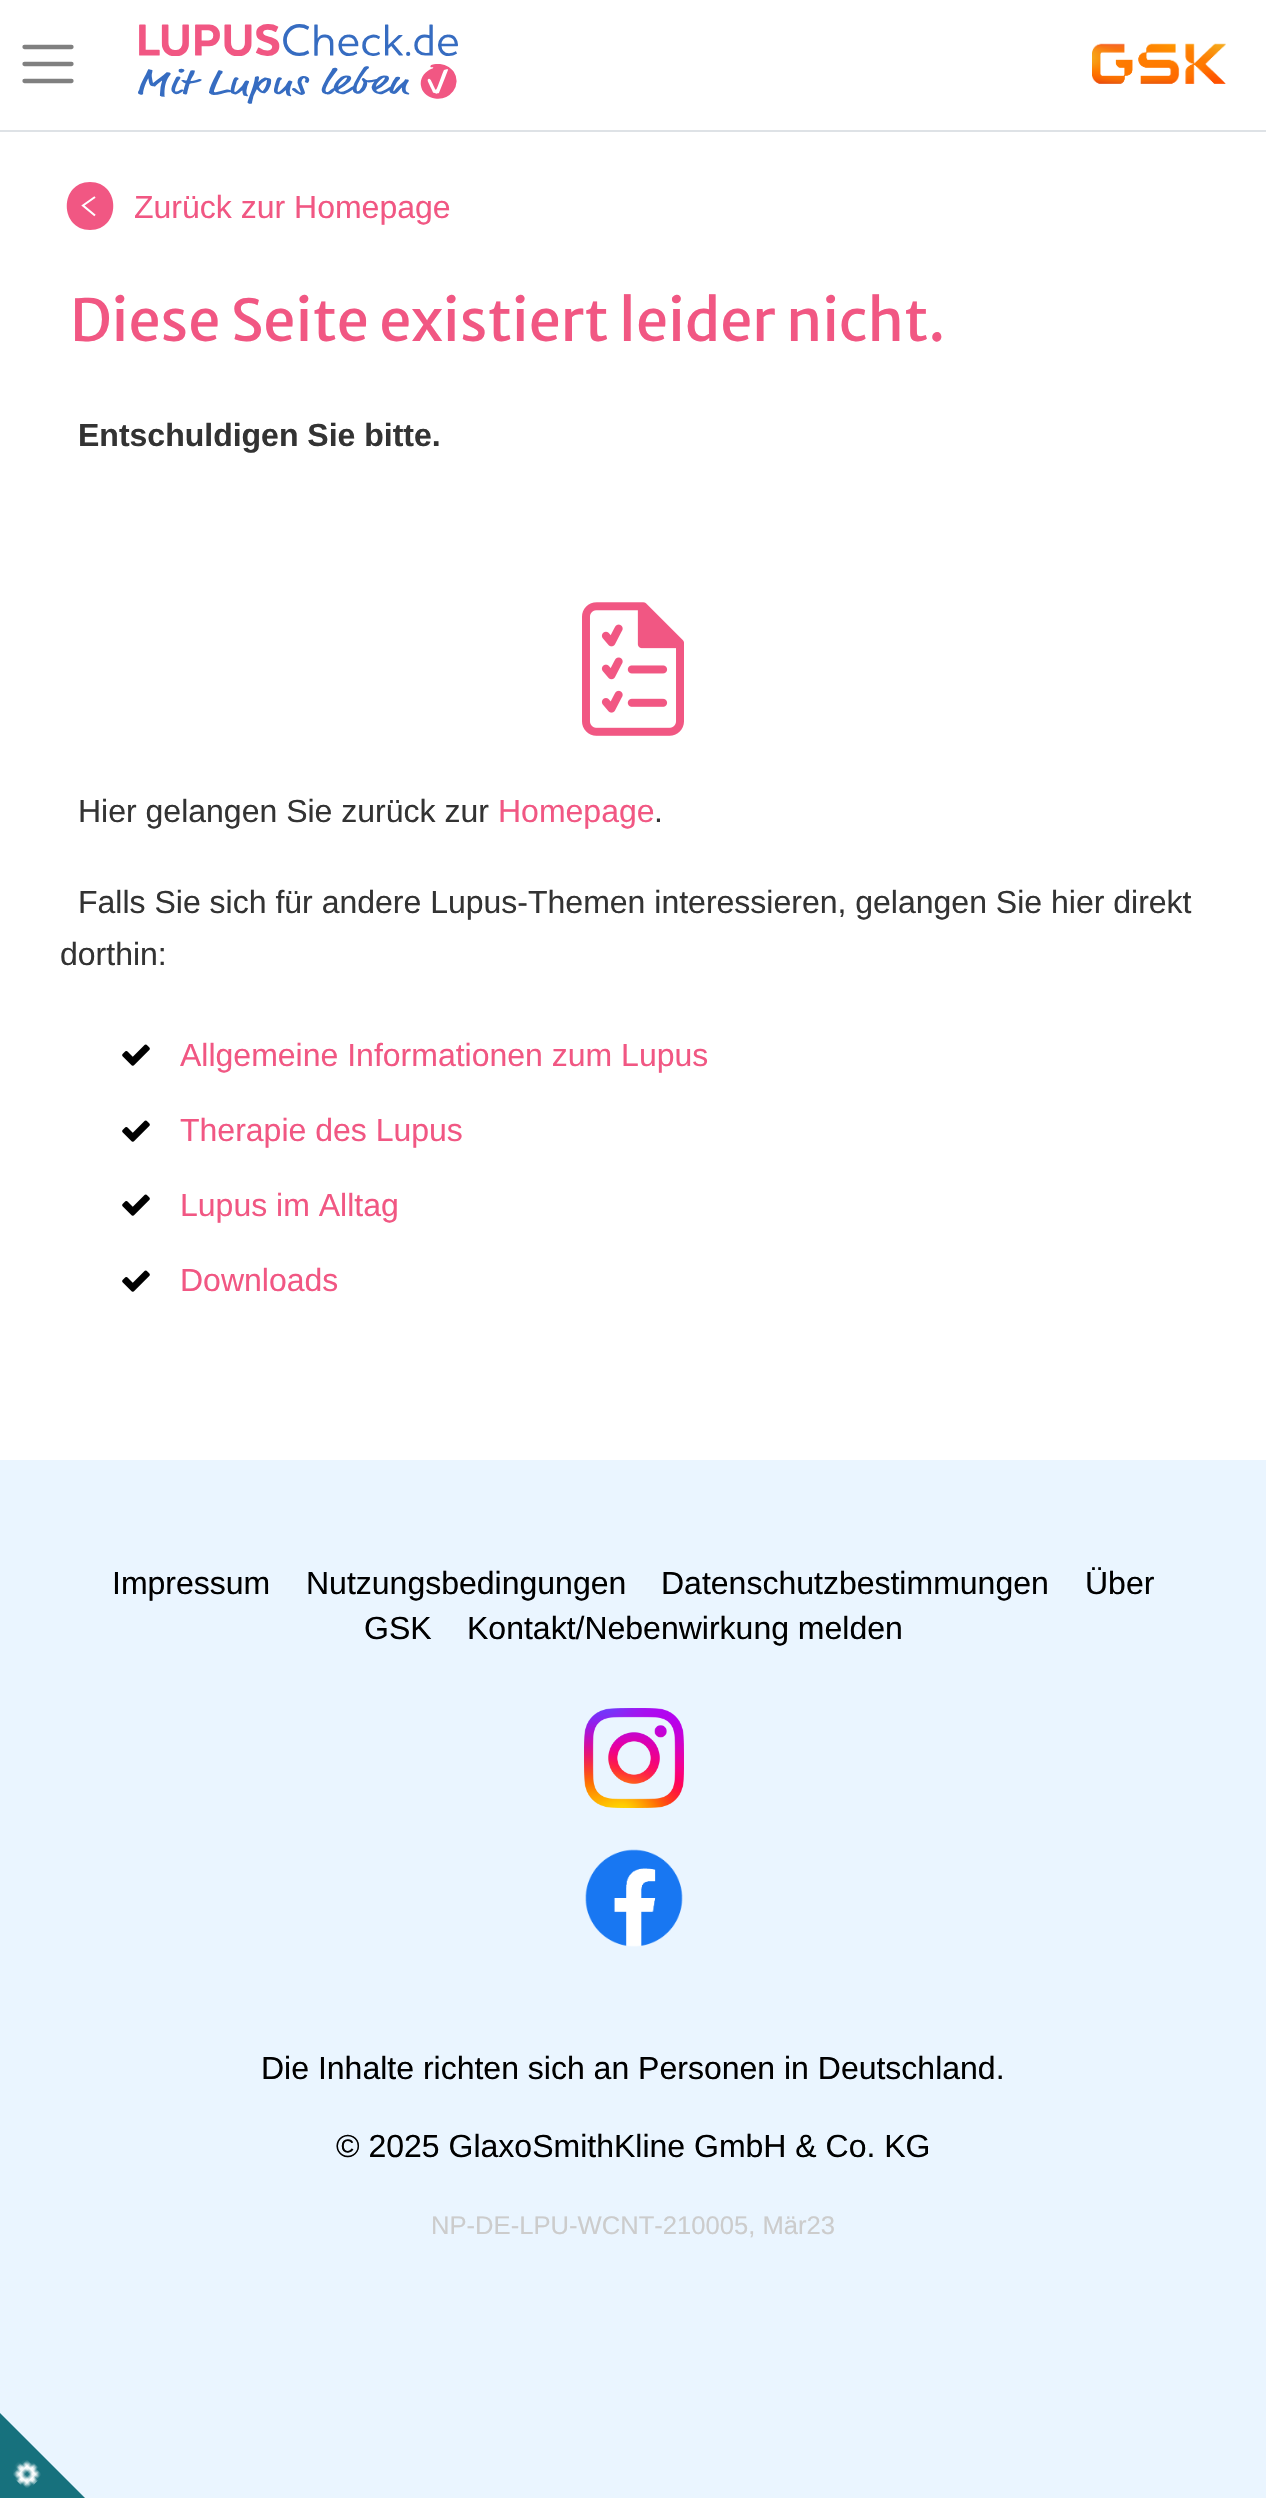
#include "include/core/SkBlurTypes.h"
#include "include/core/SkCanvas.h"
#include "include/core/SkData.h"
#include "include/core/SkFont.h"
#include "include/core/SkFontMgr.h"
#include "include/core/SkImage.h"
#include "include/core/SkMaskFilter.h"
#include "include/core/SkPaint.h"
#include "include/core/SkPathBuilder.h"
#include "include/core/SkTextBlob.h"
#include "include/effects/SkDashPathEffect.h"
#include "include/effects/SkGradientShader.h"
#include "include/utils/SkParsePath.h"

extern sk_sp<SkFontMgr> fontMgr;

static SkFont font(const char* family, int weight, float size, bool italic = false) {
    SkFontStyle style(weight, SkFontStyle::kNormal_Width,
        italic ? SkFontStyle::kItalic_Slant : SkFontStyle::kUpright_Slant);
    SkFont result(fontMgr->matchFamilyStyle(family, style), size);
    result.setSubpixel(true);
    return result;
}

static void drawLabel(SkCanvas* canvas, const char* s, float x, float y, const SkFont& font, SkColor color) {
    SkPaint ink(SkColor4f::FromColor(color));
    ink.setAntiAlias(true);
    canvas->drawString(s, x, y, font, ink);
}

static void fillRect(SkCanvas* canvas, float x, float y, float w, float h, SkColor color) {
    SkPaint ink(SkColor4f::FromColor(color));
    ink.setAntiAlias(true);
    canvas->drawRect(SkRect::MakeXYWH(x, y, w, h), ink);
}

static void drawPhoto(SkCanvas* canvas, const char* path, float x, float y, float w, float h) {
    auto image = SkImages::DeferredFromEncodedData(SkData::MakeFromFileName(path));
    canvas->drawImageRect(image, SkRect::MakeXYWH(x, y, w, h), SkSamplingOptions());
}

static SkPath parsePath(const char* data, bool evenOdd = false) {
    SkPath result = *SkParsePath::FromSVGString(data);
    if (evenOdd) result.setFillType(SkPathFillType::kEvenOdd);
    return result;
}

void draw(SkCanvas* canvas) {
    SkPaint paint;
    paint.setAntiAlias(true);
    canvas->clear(0xFFEAF5FF);
    fillRect(canvas, 0, 0, 1266, 130, 0xFFFFFFFF);
    fillRect(canvas, 0, 130, 1266, 2, 0xFFDEE2E6);
    paint.setStroke(true);
    paint.setStrokeWidth(4.3f);
    paint.setStrokeCap(SkPaint::kRound_Cap);
    paint.setColor(0xFF808080);
    canvas->drawPath(parsePath("M24.5 47H71.5M24.5 64H71.5M24.5 81H71.5"), paint);
    drawPhoto(canvas, "assets/img1.png", 138, 24, 320, 80);
    drawPhoto(canvas, "assets/img2.png", 1092, 43, 134, 41);
    fillRect(canvas, 0, 132, 1266, 1328, 0xFFFFFFFF);
    paint.setStroke(false);
    paint.setColor(0xFFF15783);
    canvas->drawPath(parsePath("M90 230C121 230 121 182 90 182C59 182 59 230 90 230Z", true), paint);
    paint.setStroke(true);
    paint.setStrokeWidth(2.1f);
    paint.setStrokeCap(SkPaint::kButt_Cap);
    paint.setColor(0xFFFFFFFF);
    canvas->drawPath(parsePath("M95 215.5L83 205.5L95 197"), paint);
    SkFont font1 = font("Arimo", 400, 32);
    drawLabel(canvas, "Zurück zur Homepage", 134, 218, font1, 0xFFF15783);
    SkFont font2 = font("Merriweather Sans", 400, 57.6f);
    drawLabel(canvas, "Diese Seite existiert leider nicht.", 70, 341, font2, 0xFFF15783);
    SkFont font3 = font("Arimo", 700, 32);
    drawLabel(canvas, "Entschuldigen Sie bitte.", 78, 446, font3, 0xFF333333);
    drawPhoto(canvas, "assets/img3.png", 582, 602, 102, 134);
    drawLabel(canvas, "Hier gelangen Sie zurück zur", 78, 822, font1, 0xFF333333);
    drawLabel(canvas, "Homepage", 498, 822, font1, 0xFFF15783);
    drawLabel(canvas, ".", 654, 822, font1, 0xFF333333);
    drawLabel(canvas, "Falls Sie sich für andere Lupus-Themen interessieren, gelangen Sie hier direkt", 78, 913, font1, 0xFF333333);
    drawLabel(canvas, "dorthin:", 60, 965, font1, 0xFF333333);
    drawPhoto(canvas, "assets/img4.png", 122, 1044, 28, 22);
    drawLabel(canvas, "Allgemeine Informationen zum Lupus", 180, 1066, font1, 0xFFF15783);
    drawPhoto(canvas, "assets/img4.png", 122, 1120, 28, 22);
    drawLabel(canvas, "Therapie des Lupus", 180, 1141, font1, 0xFFF15783);
    drawPhoto(canvas, "assets/img4.png", 122, 1194, 28, 22);
    drawLabel(canvas, "Lupus im Alltag", 180, 1216, font1, 0xFFF15783);
    drawPhoto(canvas, "assets/img4.png", 122, 1270, 28, 22);
    drawLabel(canvas, "Downloads", 180, 1291, font1, 0xFFF15783);
    drawLabel(canvas, "Impressum", 112, 1594, font1, 0xFF000000);
    drawLabel(canvas, "Nutzungsbedingungen", 306, 1594, font1, 0xFF000000);
    drawLabel(canvas, "Datenschutzbestimmungen", 661, 1594, font1, 0xFF000000);
    drawLabel(canvas, "Über", 1085, 1594, font1, 0xFF000000);
    drawLabel(canvas, "GSK", 364, 1639, font1, 0xFF000000);
    drawLabel(canvas, "Kontakt/Nebenwirkung melden", 467, 1639, font1, 0xFF000000);
    drawPhoto(canvas, "assets/img5.png", 584, 1708, 100, 100);
    drawPhoto(canvas, "assets/img6.png", 585, 1849, 98, 98);
    drawLabel(canvas, "Die Inhalte richten sich an Personen in Deutschland.", 261, 2079, font1, 0xFF000000);
    drawLabel(canvas, "© 2025 GlaxoSmithKline GmbH & Co. KG", 336, 2157, font1, 0xFF000000);
    SkFont font4 = font("Arimo", 400, 25.6f);
    drawLabel(canvas, "NP-DE-LPU-WCNT-210005, Mär23", 431, 2234, font4, 0xFFCCCCCC);
    paint.setStroke(false);
    paint.setColor(0xFF17717D);
    canvas->drawPath(parsePath("M0 2413L85 2498L0 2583L-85 2498Z"), paint);
    drawPhoto(canvas, "assets/img7.png", 13, 2460, 28, 28);
}
